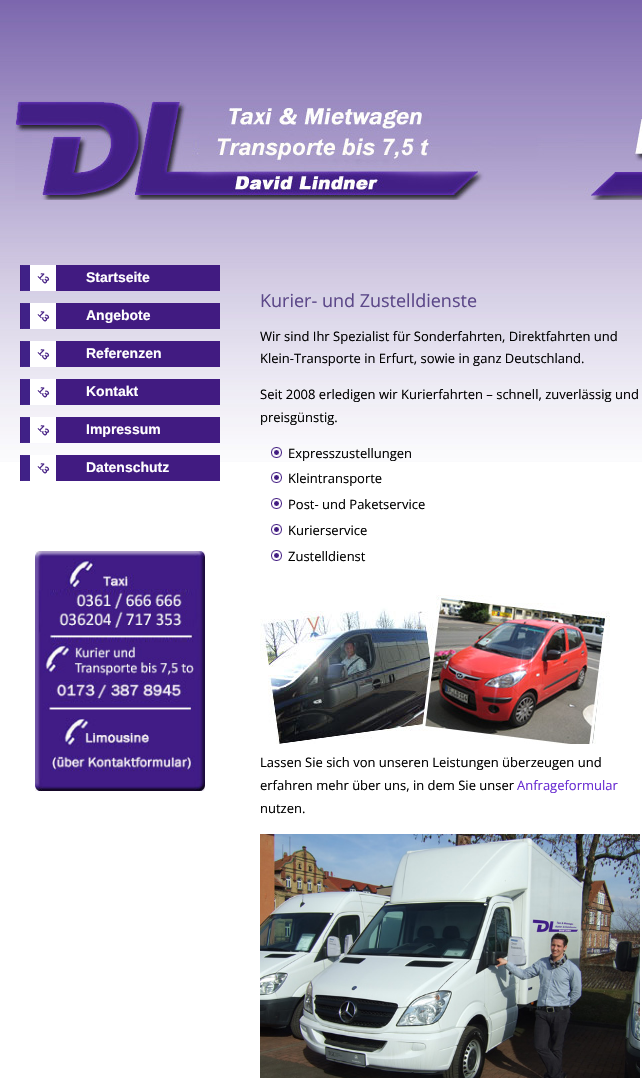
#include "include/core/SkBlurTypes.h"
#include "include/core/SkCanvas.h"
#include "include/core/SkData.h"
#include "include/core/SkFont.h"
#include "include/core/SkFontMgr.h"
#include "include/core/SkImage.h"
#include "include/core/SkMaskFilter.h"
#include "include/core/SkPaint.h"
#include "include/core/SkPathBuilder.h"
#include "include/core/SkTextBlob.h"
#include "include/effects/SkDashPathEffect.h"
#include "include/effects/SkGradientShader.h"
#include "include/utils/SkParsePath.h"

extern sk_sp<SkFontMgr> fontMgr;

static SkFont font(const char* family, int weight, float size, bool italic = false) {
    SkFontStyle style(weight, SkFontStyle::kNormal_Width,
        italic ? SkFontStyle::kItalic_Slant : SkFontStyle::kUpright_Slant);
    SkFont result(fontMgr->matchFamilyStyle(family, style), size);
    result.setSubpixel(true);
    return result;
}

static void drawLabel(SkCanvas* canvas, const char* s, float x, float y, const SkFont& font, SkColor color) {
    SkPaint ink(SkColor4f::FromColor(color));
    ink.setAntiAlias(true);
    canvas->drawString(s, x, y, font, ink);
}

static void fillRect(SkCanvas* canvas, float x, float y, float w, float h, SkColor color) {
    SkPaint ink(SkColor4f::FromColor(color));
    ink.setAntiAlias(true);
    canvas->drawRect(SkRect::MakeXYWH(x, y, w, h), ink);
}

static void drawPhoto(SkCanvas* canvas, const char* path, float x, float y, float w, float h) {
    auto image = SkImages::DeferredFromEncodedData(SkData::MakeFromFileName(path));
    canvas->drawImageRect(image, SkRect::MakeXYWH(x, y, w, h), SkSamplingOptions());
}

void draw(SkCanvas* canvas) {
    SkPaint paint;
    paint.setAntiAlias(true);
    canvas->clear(0xFFFFFFFF);
    drawPhoto(canvas, "assets/img1.png", 0, 0, 642, 462);
    drawPhoto(canvas, "assets/img2.png", 15, 100, 627, 100);
    fillRect(canvas, 20, 265, 200, 26, 0xFF411B81);
    drawPhoto(canvas, "assets/img3.png", 21, 265, 35, 26);
    SkFont font1 = font("Liberation Sans", 700, 14);
    drawLabel(canvas, "Startseite", 86, 282, font1, 0xFFFFFFFF);
    fillRect(canvas, 20, 303, 200, 26, 0xFF411B81);
    drawPhoto(canvas, "assets/img3.png", 21, 303, 35, 26);
    drawLabel(canvas, "Angebote", 86, 320, font1, 0xFFFFFFFF);
    fillRect(canvas, 20, 341, 200, 26, 0xFF411B81);
    drawPhoto(canvas, "assets/img3.png", 21, 341, 35, 26);
    drawLabel(canvas, "Referenzen", 86, 358, font1, 0xFFFFFFFF);
    fillRect(canvas, 20, 379, 200, 26, 0xFF411B81);
    drawPhoto(canvas, "assets/img3.png", 21, 379, 35, 26);
    drawLabel(canvas, "Kontakt", 86, 396, font1, 0xFFFFFFFF);
    fillRect(canvas, 20, 417, 200, 26, 0xFF411B81);
    drawPhoto(canvas, "assets/img3.png", 21, 417, 35, 26);
    drawLabel(canvas, "Impressum", 86, 434, font1, 0xFFFFFFFF);
    fillRect(canvas, 20, 455, 200, 26, 0xFF411B81);
    drawPhoto(canvas, "assets/img3.png", 21, 455, 35, 26);
    drawLabel(canvas, "Datenschutz", 86, 472, font1, 0xFFFFFFFF);
    drawPhoto(canvas, "assets/img4.png", 35, 551, 170, 240);
    SkFont font2 = font("Open Sans", 400, 18);
    drawLabel(canvas, "Kurier- und Zustelldienste", 260, 307, font2, 0xFF5C4889);
    SkFont font3 = font("Open Sans", 400, 13);
    drawLabel(canvas, "Wir sind Ihr Spezialist für Sonderfahrten, Direktfahrten und", 260, 341, font3, 0xFF000000);
    drawLabel(canvas, "Klein-Transporte in Erfurt, sowie in ganz Deutschland.", 260, 363, font3, 0xFF000000);
    drawLabel(canvas, "Seit 2008 erledigen wir Kurierfahrten – schnell, zuverlässig und", 260, 399, font3, 0xFF000000);
    drawLabel(canvas, "preisgünstig.", 260, 422, font3, 0xFF000000);
    drawPhoto(canvas, "assets/img5.png", 271, 447, 11, 11);
    drawLabel(canvas, "Expresszustellungen", 288, 458, font3, 0xFF000000);
    drawPhoto(canvas, "assets/img6.png", 271, 472, 11, 11);
    drawLabel(canvas, "Kleintransporte", 288, 483, font3, 0xFF000000);
    drawPhoto(canvas, "assets/img6.png", 271, 498, 11, 11);
    drawLabel(canvas, "Post- und Paketservice", 288, 509, font3, 0xFF000000);
    drawPhoto(canvas, "assets/img6.png", 271, 524, 11, 11);
    drawLabel(canvas, "Kurierservice", 288, 535, font3, 0xFF000000);
    drawPhoto(canvas, "assets/img6.png", 271, 550, 11, 11);
    drawLabel(canvas, "Zustelldienst", 288, 561, font3, 0xFF000000);
    drawPhoto(canvas, "assets/img7.png", 260, 595, 350, 149);
    drawLabel(canvas, "Lassen Sie sich von unseren Leistungen überzeugen und", 260, 767, font3, 0xFF000000);
    drawLabel(canvas, "erfahren mehr über uns, in dem Sie unser", 260, 790, font3, 0xFF000000);
    drawLabel(canvas, "Anfrageformular", 517, 790, font3, 0xFF692DD2);
    drawLabel(canvas, "nutzen.", 260, 813, font3, 0xFF000000);
    drawPhoto(canvas, "assets/img8.png", 260, 834, 380, 244);
}
